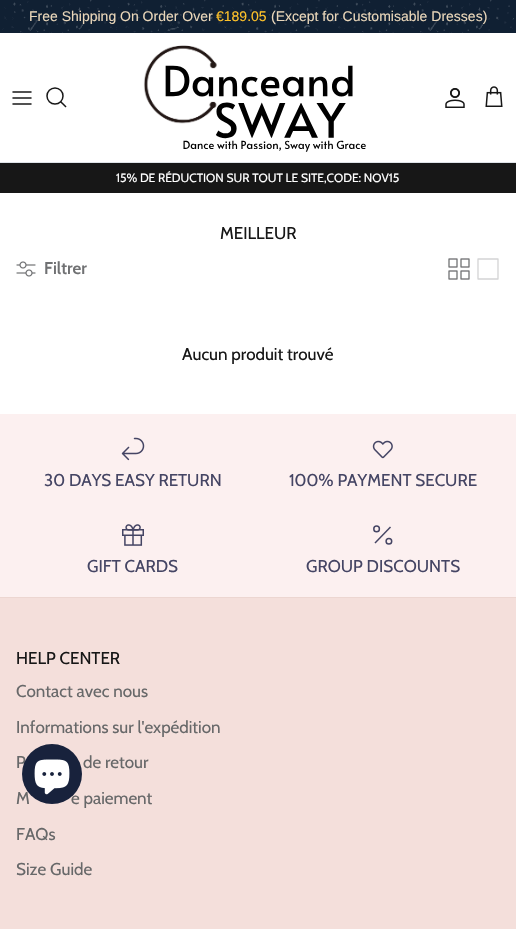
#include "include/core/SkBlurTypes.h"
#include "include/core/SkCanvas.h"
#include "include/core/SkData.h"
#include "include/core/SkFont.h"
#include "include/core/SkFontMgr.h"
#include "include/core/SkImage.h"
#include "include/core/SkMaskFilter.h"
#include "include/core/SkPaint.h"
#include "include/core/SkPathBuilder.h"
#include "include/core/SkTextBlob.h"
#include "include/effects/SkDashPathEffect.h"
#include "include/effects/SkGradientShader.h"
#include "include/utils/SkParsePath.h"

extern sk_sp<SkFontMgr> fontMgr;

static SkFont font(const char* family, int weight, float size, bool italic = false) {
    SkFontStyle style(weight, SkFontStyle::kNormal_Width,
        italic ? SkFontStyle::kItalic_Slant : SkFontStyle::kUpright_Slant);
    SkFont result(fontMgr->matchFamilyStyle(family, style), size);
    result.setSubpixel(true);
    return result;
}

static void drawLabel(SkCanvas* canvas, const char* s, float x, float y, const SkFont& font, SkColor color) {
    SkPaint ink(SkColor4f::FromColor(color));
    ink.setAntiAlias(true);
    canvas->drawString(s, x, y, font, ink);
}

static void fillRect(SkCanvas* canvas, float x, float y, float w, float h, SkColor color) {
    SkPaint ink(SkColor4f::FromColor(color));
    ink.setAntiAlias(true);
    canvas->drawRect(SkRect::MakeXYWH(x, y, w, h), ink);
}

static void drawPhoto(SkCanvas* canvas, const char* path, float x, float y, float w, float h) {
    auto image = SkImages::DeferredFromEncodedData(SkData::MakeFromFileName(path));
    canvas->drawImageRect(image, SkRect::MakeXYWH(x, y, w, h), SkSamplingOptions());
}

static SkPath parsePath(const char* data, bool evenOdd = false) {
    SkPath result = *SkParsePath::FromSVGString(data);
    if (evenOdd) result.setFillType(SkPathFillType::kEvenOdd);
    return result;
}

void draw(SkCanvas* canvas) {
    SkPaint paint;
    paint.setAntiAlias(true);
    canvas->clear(0xFFFFFFFF);
    drawPhoto(canvas, "assets/img1.png", 0, 0, 516, 33);
    SkFont font1 = font("Liberation Sans", 400, 14);
    drawLabel(canvas, "Free Shipping On Order Over", 29, 21, font1, 0xFFEAD7BA);
    drawLabel(canvas, "€189.05", 216, 21, font1, 0xFFFFC229);
    drawLabel(canvas, "(Except for Customisable Dresses)", 271, 21, font1, 0xFFEAD7BA);
    fillRect(canvas, 0, 162, 516, 1, 0xFFDFE3E8);
    paint.setStroke(true);
    paint.setStrokeWidth(1.5f);
    paint.setStrokeCap(SkPaint::kRound_Cap);
    paint.setStrokeJoin(SkPaint::kRound_Join);
    paint.setColor(0xFF171717);
    canvas->drawPath(parsePath("M13 98H31M13 92H31M13 104H31"), paint);
    paint.setStrokeCap(SkPaint::kButt_Cap);
    paint.setStrokeJoin(SkPaint::kMiter_Join);
    canvas->drawCircle(55, 96, 8, paint);
    paint.setStrokeCap(SkPaint::kSquare_Cap);
    canvas->drawPath(parsePath("M61 102L65.5 106.5"), paint);
    drawPhoto(canvas, "assets/img2.png", 143, 45, 223, 107);
    drawPhoto(canvas, "assets/img3.png", 445, 88, 20, 20);
    drawPhoto(canvas, "assets/img4.png", 485, 86, 18, 21);
    fillRect(canvas, 0, 163, 516, 30, 0xFF171717);
    SkFont font2 = font("Cabin", 400, 12);
    drawLabel(canvas, "15% DE RÉDUCTION SUR TOUT LE SITE,CODE: NOV15", 116, 182, font2, 0xFFFFFFFF);
    SkFont font3 = font("Cabin", 400, 17);
    drawLabel(canvas, "MEILLEUR", 220, 239, font3, 0xFF171717);
    drawPhoto(canvas, "assets/img5.png", 16, 261, 20, 16);
    SkFont font4 = font("Cabin", 600, 17);
    drawLabel(canvas, "Filtrer", 44, 274, font4, 0xFF707173);
    drawPhoto(canvas, "assets/img6.png", 448, 258, 22, 22);
    paint.setStrokeWidth(1.3f);
    paint.setStrokeCap(SkPaint::kRound_Cap);
    paint.setStrokeJoin(SkPaint::kRound_Join);
    paint.setColor(0xFFD4D4D5);
    canvas->drawPath(parsePath("M478 259H498V279H478V259"), paint);
    drawLabel(canvas, "Aucun produit trouvé", 182, 360, font3, 0xFF171717);
    fillRect(canvas, 0, 414, 516, 183, 0xFFFCF0F0);
    drawPhoto(canvas, "assets/img7.png", 121, 437, 24, 24);
    drawLabel(canvas, "30 DAYS EASY RETURN", 44, 486, font3, 0xFF454564);
    drawPhoto(canvas, "assets/img8.png", 372, 440, 21, 19);
    drawLabel(canvas, "100% PAYMENT SECURE", 289, 486, font3, 0xFF454564);
    drawPhoto(canvas, "assets/img9.png", 122, 524, 22, 22);
    drawLabel(canvas, "GIFT CARDS", 87, 572, font3, 0xFF454564);
    paint.setStrokeWidth(1.5f);
    paint.setStrokeCap(SkPaint::kButt_Cap);
    paint.setStrokeJoin(SkPaint::kMiter_Join);
    paint.setColor(0xFF454564);
    canvas->drawPath(parsePath("M390.5 527L375 543"), paint);
    canvas->drawCircle(376.6f, 528.9f, 2.8f, paint);
    canvas->drawCircle(388.9f, 541.2f, 2.8f, paint);
    drawLabel(canvas, "GROUP DISCOUNTS", 306, 572, font3, 0xFF454564);
    fillRect(canvas, 0, 598, 516, 331, 0xFFF4DFDB);
    fillRect(canvas, 0, 597, 516, 1, 0xFFECD6D1);
    drawLabel(canvas, "HELP CENTER", 16, 664, font3, 0xFF171717);
    drawLabel(canvas, "Contact avec nous", 16, 697, font3, 0xFF676869);
    drawLabel(canvas, "Informations sur l'expédition", 16, 733, font3, 0xFF676869);
    drawLabel(canvas, "P", 16, 768, font3, 0xFF676869);
    drawLabel(canvas, "de retour", 83, 768, font3, 0xFF676869);
    drawLabel(canvas, "M", 16, 804, font3, 0xFF676869);
    drawLabel(canvas, "e paiement", 71, 804, font3, 0xFF676869);
    drawLabel(canvas, "FAQs", 16, 840, font3, 0xFF676869);
    drawLabel(canvas, "Size Guide", 16, 875, font3, 0xFF676869);
    paint.setStroke(false);
    paint.setColor(0xFF18223C);
    canvas->drawCircle(52, 774, 30, paint);
    drawPhoto(canvas, "assets/img10.png", 34, 759, 36, 36);
}
